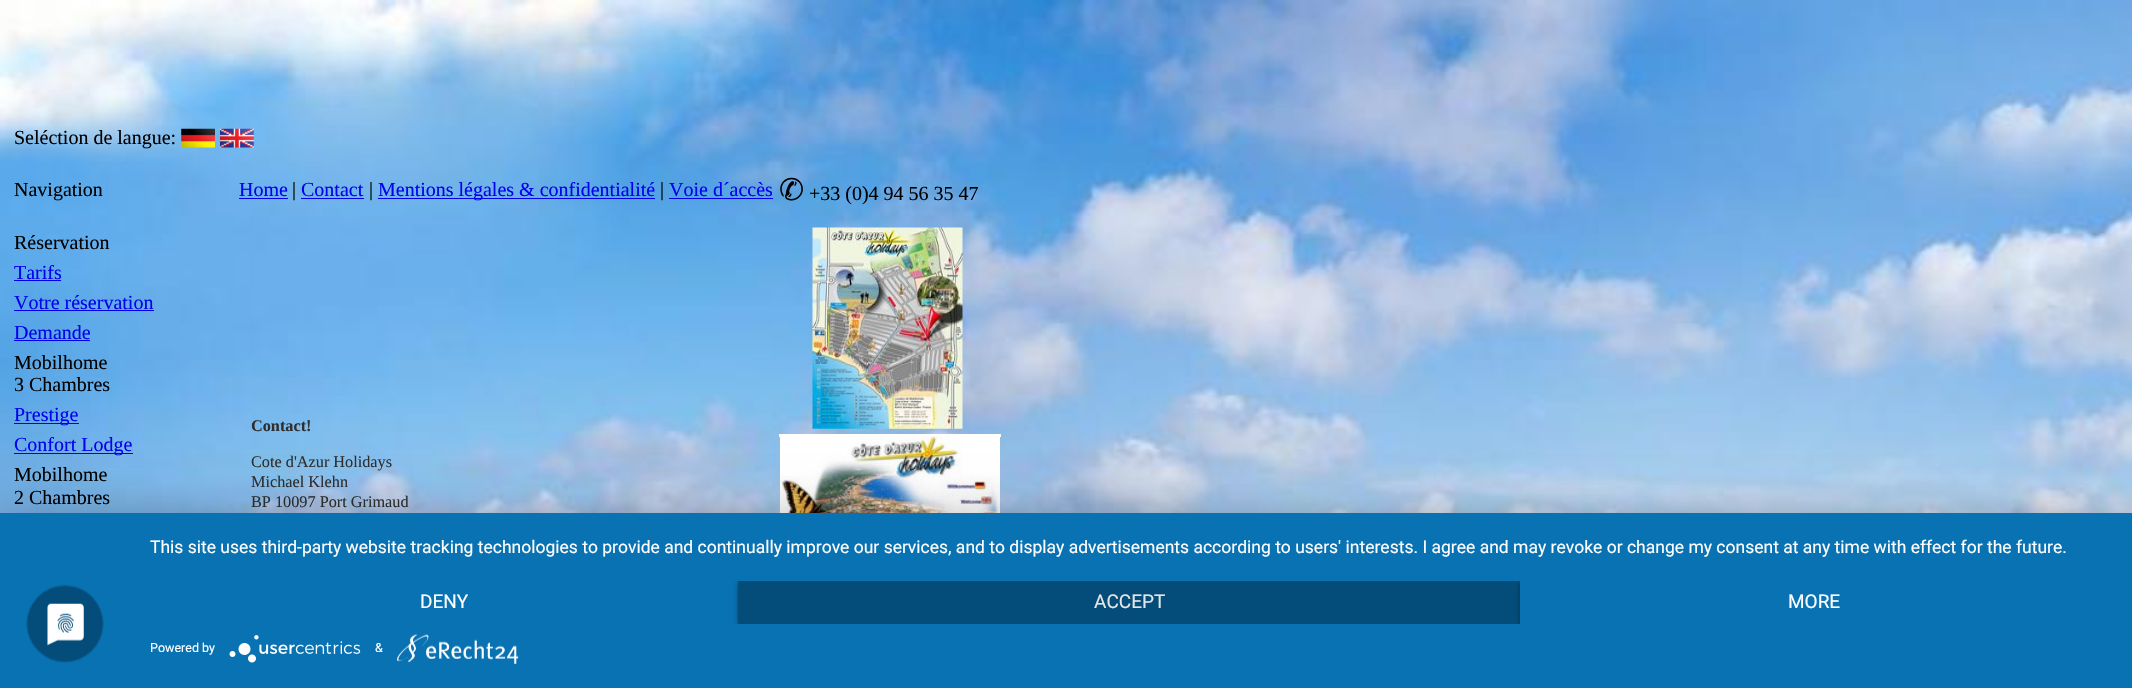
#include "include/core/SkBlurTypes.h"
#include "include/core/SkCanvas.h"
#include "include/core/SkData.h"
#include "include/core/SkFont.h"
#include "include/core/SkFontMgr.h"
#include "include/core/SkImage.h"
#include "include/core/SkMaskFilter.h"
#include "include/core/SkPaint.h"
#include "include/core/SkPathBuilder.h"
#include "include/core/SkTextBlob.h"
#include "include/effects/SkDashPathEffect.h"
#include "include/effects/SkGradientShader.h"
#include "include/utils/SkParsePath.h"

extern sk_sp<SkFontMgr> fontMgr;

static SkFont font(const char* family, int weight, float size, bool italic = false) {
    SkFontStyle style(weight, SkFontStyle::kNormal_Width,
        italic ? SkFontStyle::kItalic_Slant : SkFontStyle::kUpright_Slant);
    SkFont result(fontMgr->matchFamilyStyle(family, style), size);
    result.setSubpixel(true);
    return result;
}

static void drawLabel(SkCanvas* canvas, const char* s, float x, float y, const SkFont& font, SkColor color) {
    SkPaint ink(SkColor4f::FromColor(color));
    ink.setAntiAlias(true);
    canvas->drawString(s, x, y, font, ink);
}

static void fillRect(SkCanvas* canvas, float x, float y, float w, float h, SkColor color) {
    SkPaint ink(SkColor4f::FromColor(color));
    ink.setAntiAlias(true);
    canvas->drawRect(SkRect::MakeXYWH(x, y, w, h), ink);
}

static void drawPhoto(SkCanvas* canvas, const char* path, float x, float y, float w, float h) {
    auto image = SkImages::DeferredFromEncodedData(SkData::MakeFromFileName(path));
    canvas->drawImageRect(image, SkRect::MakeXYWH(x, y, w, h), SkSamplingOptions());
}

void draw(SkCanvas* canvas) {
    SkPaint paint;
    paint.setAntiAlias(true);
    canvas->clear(0xFFFFFFFF);
    drawPhoto(canvas, "assets/img1.png", 0, 0, 2132, 513);
    SkFont font1 = font("Liberation Serif", 400, 20);
    drawLabel(canvas, "Seléction de langue:", 14, 144, font1, 0xFF000000);
    drawPhoto(canvas, "assets/img2.png", 181, 128, 34, 20);
    drawPhoto(canvas, "assets/img3.png", 220, 128, 34, 20);
    drawLabel(canvas, "Navigation", 14, 196, font1, 0xFF000000);
    drawLabel(canvas, "Home", 239, 196, font1, 0xFF0000EE);
    fillRect(canvas, 239, 198, 49, 1, 0xFF0000EE);
    drawLabel(canvas, "|", 292, 196, font1, 0xFF000000);
    drawLabel(canvas, "Contact", 301, 196, font1, 0xFF0000EE);
    fillRect(canvas, 301, 198, 63, 1, 0xFF0000EE);
    drawLabel(canvas, "|", 369, 196, font1, 0xFF000000);
    fillRect(canvas, 378, 198, 277, 1, 0xFF0000EE);
    drawLabel(canvas, "Mentions légales & confidentialité", 378, 196, font1, 0xFF0000EE);
    drawLabel(canvas, "|", 660, 196, font1, 0xFF000000);
    drawLabel(canvas, "Voie d´accès", 669, 196, font1, 0xFF0000EE);
    fillRect(canvas, 669, 198, 104, 1, 0xFF0000EE);
    SkFont font2 = font("DejaVu Sans", 400, 30);
    drawLabel(canvas, "✆", 779, 200, font2, 0xFF000000);
    drawLabel(canvas, "+33 (0)4 94 56 35 47", 809, 200, font1, 0xFF000000);
    drawLabel(canvas, "Réservation", 14, 249, font1, 0xFF000000);
    drawLabel(canvas, "Tarifs", 14, 279, font1, 0xFF0000EE);
    fillRect(canvas, 14, 280, 47, 1, 0xFF0000EE);
    drawLabel(canvas, "Votre réservation", 14, 309, font1, 0xFF0000EE);
    fillRect(canvas, 14, 310, 140, 1, 0xFF0000EE);
    drawLabel(canvas, "Demande", 14, 339, font1, 0xFF0000EE);
    fillRect(canvas, 14, 340, 76, 1, 0xFF0000EE);
    drawLabel(canvas, "Mobilhome", 14, 369, font1, 0xFF000000);
    drawLabel(canvas, "3 Chambres", 14, 391, font1, 0xFF000000);
    fillRect(canvas, 14, 423, 65, 1, 0xFF0000EE);
    drawLabel(canvas, "Prestige", 14, 421, font1, 0xFF0000EE);
    fillRect(canvas, 14, 453, 119, 1, 0xFF0000EE);
    drawLabel(canvas, "Confort Lodge", 14, 451, font1, 0xFF0000EE);
    drawLabel(canvas, "Mobilhome", 14, 481, font1, 0xFF000000);
    drawLabel(canvas, "2 Chambres", 14, 504, font1, 0xFF000000);
    SkFont font3 = font("Liberation Serif", 700, 16.25f);
    drawLabel(canvas, "Contact!", 251, 431, font3, 0xFF2F2F2F);
    SkFont font4 = font("Liberation Serif", 400, 16.25f);
    drawLabel(canvas, "Cote d'Azur Holidays", 251, 467, font4, 0xFF2F2F2F);
    drawLabel(canvas, "Michael Klehn", 251, 487, font4, 0xFF2F2F2F);
    drawLabel(canvas, "BP 10097 Port Grimaud", 251, 507, font4, 0xFF2F2F2F);
    fillRect(canvas, 779, 434, 222, 3, 0xFFFFFFFF);
    drawPhoto(canvas, "assets/img4.png", 812, 227, 151, 202);
    drawPhoto(canvas, "assets/img5.png", 780, 436, 220, 77);
    paint.setColor(0x4D000000);
    paint.setMaskFilter(SkMaskFilter::MakeBlur(kNormal_SkBlurStyle, 22.5f));
    canvas->drawRect(SkRect::MakeXYWH(0, 520, 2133, 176), paint);
    paint.setMaskFilter(nullptr);
    fillRect(canvas, 0, 513, 2132, 175, 0xFF0972B3);
    drawPhoto(canvas, "assets/img6.png", 26, 584, 78, 79);
    SkFont font5 = font("Roboto", 400, 17.5f);
    drawLabel(canvas, "This site uses third-party website tracking technologies to provide and continually improve our services, and to display advertisements according to users' interests. I agree and may revoke or change my consent at any time with effect for the future.", 150, 553, font5, 0xFFFFFFFF);
    SkFont font6 = font("Roboto", 400, 19);
    drawLabel(canvas, "DENY", 420, 608, font6, 0xFFFFFFFF);
    canvas->save();
    canvas->clipRect(SkRect::MakeXYWH(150, 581, 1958, 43));
    paint.setColor(0x66000000);
    paint.setMaskFilter(SkMaskFilter::MakeBlur(kNormal_SkBlurStyle, 2.5f));
    canvas->drawRect(SkRect::MakeXYWH(738, 583, 782, 42), paint);
    paint.setMaskFilter(nullptr);
    canvas->restore();
    fillRect(canvas, 738, 581, 782, 43, 0xFF044D7A);
    drawLabel(canvas, "ACCEPT", 1094, 608, font6, 0xFFE6E6E6);
    canvas->save();
    canvas->clipRect(SkRect::MakeXYWH(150, 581, 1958, 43));
    paint.setMaskFilter(SkMaskFilter::MakeBlur(kNormal_SkBlurStyle, 2.5f));
    canvas->drawRect(SkRect::MakeXYWH(1520, 583, 588, 42), paint);
    paint.setMaskFilter(nullptr);
    canvas->restore();
    fillRect(canvas, 1520, 581, 588, 43, 0xFF0972B3);
    drawLabel(canvas, "MORE", 1788, 608, font6, 0xFFFFFFFF);
    SkFont font7 = font("Roboto", 400, 12.5f);
    drawLabel(canvas, "Powered by", 150, 652, font7, 0xFFFFFFFF);
    drawPhoto(canvas, "assets/img7.png", 229, 635, 132, 28);
    drawLabel(canvas, "&", 375, 652, font7, 0xFFFFFFFF);
    drawPhoto(canvas, "assets/img8.png", 397, 633, 122, 31);
}
